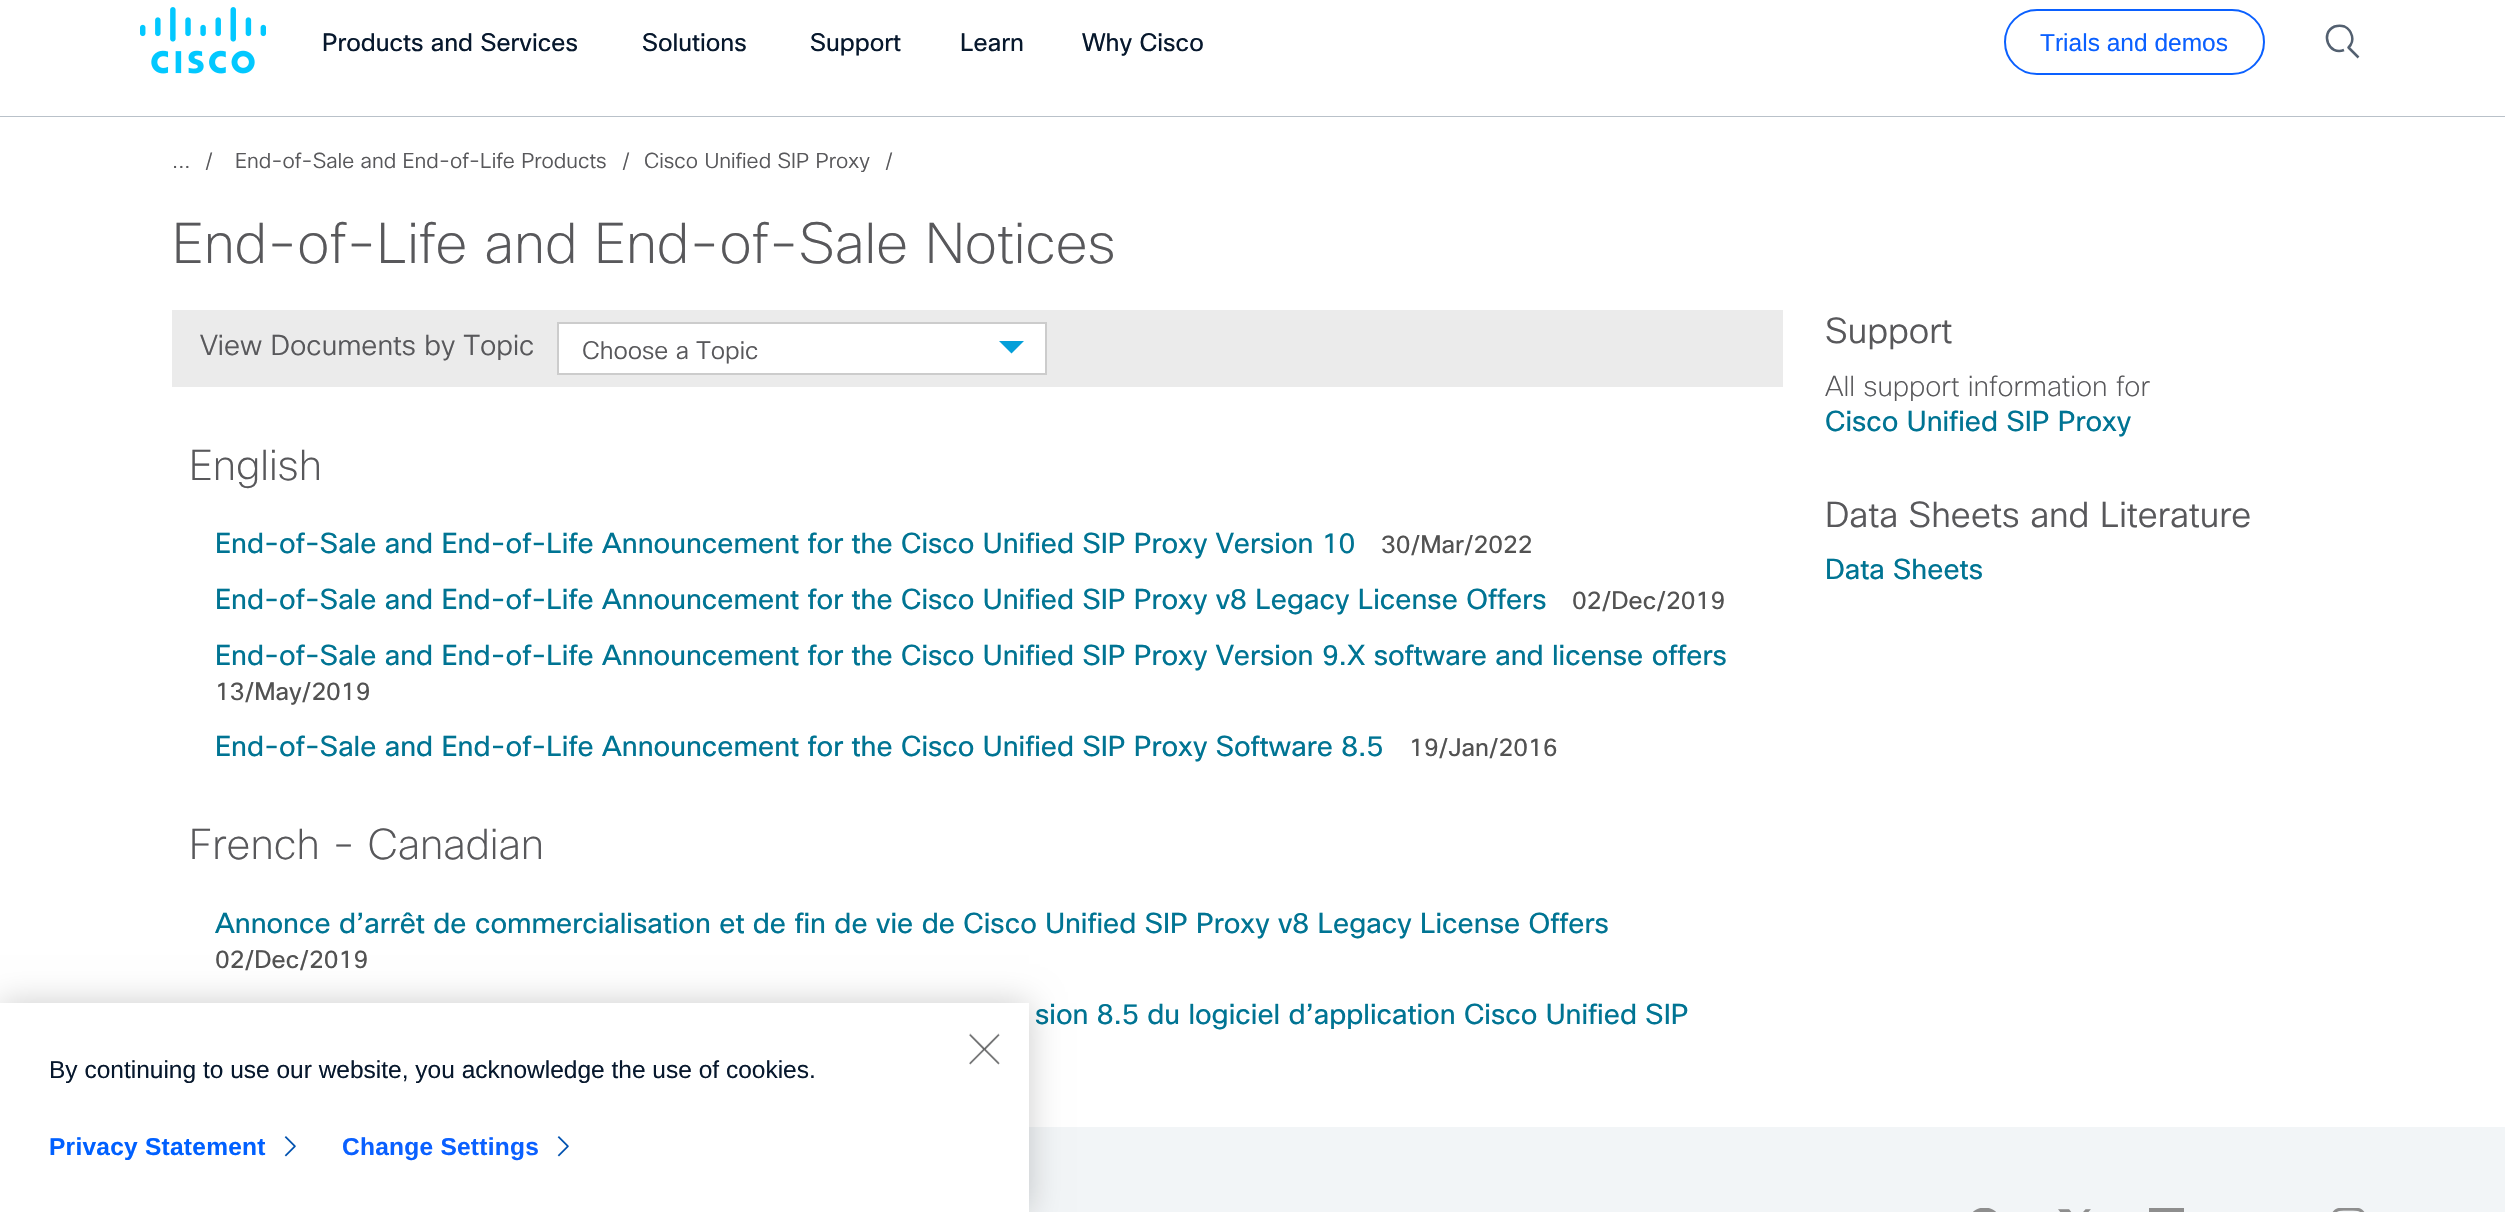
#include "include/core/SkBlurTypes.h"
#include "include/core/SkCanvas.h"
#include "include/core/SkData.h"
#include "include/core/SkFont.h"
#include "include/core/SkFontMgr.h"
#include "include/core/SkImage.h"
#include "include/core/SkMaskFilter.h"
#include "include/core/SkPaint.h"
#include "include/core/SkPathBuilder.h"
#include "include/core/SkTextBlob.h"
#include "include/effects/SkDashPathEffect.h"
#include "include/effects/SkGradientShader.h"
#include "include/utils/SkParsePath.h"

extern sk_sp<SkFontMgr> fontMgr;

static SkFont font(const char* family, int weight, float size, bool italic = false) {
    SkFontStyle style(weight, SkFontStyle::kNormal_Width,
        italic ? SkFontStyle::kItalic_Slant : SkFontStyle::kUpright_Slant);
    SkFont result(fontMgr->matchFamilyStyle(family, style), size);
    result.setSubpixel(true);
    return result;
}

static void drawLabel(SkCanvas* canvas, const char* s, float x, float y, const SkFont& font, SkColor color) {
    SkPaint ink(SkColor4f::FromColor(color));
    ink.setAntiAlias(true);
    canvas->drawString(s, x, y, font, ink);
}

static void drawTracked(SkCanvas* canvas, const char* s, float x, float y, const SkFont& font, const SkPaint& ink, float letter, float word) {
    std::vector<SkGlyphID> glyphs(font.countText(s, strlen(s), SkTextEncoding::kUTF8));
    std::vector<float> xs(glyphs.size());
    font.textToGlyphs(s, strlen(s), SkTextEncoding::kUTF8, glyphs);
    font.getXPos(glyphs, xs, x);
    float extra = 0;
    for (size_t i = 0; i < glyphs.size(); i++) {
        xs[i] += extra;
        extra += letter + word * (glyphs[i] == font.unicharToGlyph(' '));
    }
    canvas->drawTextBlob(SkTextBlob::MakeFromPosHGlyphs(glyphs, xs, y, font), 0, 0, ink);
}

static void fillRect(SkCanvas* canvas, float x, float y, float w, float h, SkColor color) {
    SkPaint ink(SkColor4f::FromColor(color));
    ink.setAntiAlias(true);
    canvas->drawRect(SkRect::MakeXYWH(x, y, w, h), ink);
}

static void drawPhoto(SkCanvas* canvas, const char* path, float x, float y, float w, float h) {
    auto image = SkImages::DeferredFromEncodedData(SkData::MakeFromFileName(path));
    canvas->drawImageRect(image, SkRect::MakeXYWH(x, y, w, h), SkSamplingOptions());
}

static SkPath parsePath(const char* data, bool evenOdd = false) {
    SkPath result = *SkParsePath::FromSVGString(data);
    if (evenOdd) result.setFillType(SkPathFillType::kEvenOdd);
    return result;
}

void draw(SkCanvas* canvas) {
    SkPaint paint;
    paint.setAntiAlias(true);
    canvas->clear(0xFFFFFFFF);
    fillRect(canvas, 0, 116, 2505, 1, 0xFFB9C1C9);
    drawPhoto(canvas, "assets/img1.png", 140, 7, 126, 67);
    SkFont font1 = font("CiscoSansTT", 400, 24.5f);
    drawLabel(canvas, "Products and Services", 322, 51, font1, 0xFF07182D);
    drawLabel(canvas, "Solutions", 642, 51, font1, 0xFF07182D);
    drawLabel(canvas, "Support", 810, 51, font1, 0xFF07182D);
    drawLabel(canvas, "Learn", 960, 51, font1, 0xFF07182D);
    drawLabel(canvas, "Why Cisco", 1082, 51, font1, 0xFF07182D);
    paint.setStroke(true);
    paint.setStrokeWidth(2);
    paint.setColor(0xFF0A60FF);
    canvas->drawRoundRect(SkRect::MakeXYWH(2005, 10, 259, 64), 32, 32, paint);
    SkFont font2 = font("Liberation Sans", 400, 24.5f);
    drawLabel(canvas, "Trials and demos", 2040, 51, font2, 0xFF0A60FF);
    paint.setStrokeWidth(2.5f);
    paint.setStrokeJoin(SkPaint::kRound_Join);
    paint.setColor(0xFF536070);
    canvas->drawPath(parsePath("M2344 50C2329 56 2319.5 33 2334.5 26.5C2338 25.5 2341.5 25.5 2344.5 26.5C2348.5 28.5 2351 32 2352 36C2353 40 2351.5 44.5 2348.5 47.5L2358.5 57.5"), paint);
    SkFont font3 = font("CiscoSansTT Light", 300, 21);
    drawLabel(canvas, "...", 172, 168, font3, 0xFF58585B);
    drawLabel(canvas, "/", 205, 168, font3, 0xFF58585B);
    drawLabel(canvas, "End-of-Sale and End-of-Life Products", 235, 168, font3, 0xFF58585B);
    drawLabel(canvas, "/", 622, 168, font3, 0xFF58585B);
    drawLabel(canvas, "Cisco Unified SIP Proxy", 644, 168, font3, 0xFF58585B);
    drawLabel(canvas, "/", 885, 168, font3, 0xFF58585B);
    SkFont font4 = font("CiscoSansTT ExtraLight", 200, 56);
    drawLabel(canvas, "End-of-Life and End-of-Sale Notices", 172, 263, font4, 0xFF58585B);
    fillRect(canvas, 172, 310, 1611, 77, 0xFFEBEBEB);
    SkFont font5 = font("CiscoSansTT Light", 300, 28);
    drawLabel(canvas, "View Documents by Topic", 200, 355, font5, 0xFF58585B);
    paint.setStroke(false);
    paint.setColor(0xFFFFFFFF);
    canvas->drawRect(SkRect::MakeXYWH(558, 323, 488, 51), paint);
    paint.setStroke(true);
    paint.setStrokeWidth(2);
    paint.setStrokeJoin(SkPaint::kMiter_Join);
    paint.setColor(0xFFCCCCCC);
    canvas->drawRect(SkRect::MakeXYWH(558, 323, 488, 51), paint);
    SkFont font6 = font("CiscoSansTT Light", 300, 24.5f);
    drawLabel(canvas, "Choose a Topic", 582, 359, font6, 0xFF58585B);
    paint.setStroke(false);
    paint.setColor(0xFF049FD9);
    canvas->drawPath(parsePath("M999 341H1024L1011.5 353.5Z"), paint);
    SkFont font7 = font("CiscoSansTT ExtraLight", 200, 42);
    drawLabel(canvas, "English", 189, 480, font7, 0xFF58585B);
    SkFont font8 = font("CiscoSansTT", 400, 28);
    drawLabel(canvas, "End-of-Sale and End-of-Life Announcement for the Cisco Unified SIP Proxy Version 10", 215, 553, font8, 0xFF007493);
    drawLabel(canvas, "30/Mar/2022", 1381, 553, font1, 0xFF525252);
    drawLabel(canvas, "End-of-Sale and End-of-Life Announcement for the Cisco Unified SIP Proxy v8 Legacy License Offers", 215, 609, font8, 0xFF007493);
    drawLabel(canvas, "02/Dec/2019", 1572, 609, font1, 0xFF525252);
    drawLabel(canvas, "End-of-Sale and End-of-Life Announcement for the Cisco Unified SIP Proxy Version 9.X software and license offers", 215, 665, font8, 0xFF007493);
    drawLabel(canvas, "13/May/2019", 215, 700, font1, 0xFF525252);
    drawLabel(canvas, "End-of-Sale and End-of-Life Announcement for the Cisco Unified SIP Proxy Software 8.5", 215, 756, font8, 0xFF007493);
    drawLabel(canvas, "19/Jan/2016", 1409, 756, font1, 0xFF525252);
    drawLabel(canvas, "French - Canadian", 189, 859, font7, 0xFF58585B);
    drawLabel(canvas, "Annonce d’arrêt de commercialisation et de fin de vie de Cisco Unified SIP Proxy v8 Legacy License Offers", 215, 933, font8, 0xFF007493);
    drawLabel(canvas, "02/Dec/2019", 215, 968, font1, 0xFF525252);
    drawLabel(canvas, "sion 8.5 du logiciel d’application Cisco Unified SIP", 1035, 1024, font8, 0xFF007493);
    SkFont font9 = font("CiscoSansTT Light", 300, 35);
    drawLabel(canvas, "Support", 1825, 343, font9, 0xFF58585B);
    SkFont font10 = font("CiscoSansTT ExtraLight", 200, 28);
    drawLabel(canvas, "All support information for", 1825, 396, font10, 0xFF58585B);
    drawLabel(canvas, "Cisco Unified SIP Proxy", 1825, 431, font8, 0xFF007493);
    drawLabel(canvas, "Data Sheets and Literature", 1825, 527, font9, 0xFF58585B);
    drawLabel(canvas, "Data Sheets", 1825, 579, font8, 0xFF007493);
    fillRect(canvas, 1029, 1127, 1476, 85, 0xFFF2F5F7);
    drawPhoto(canvas, "assets/img2.png", 1973, 1208, 23, 4);
    drawPhoto(canvas, "assets/img3.png", 2058, 1209, 33, 3);
    fillRect(canvas, 2149, 1208, 35, 4, 0xFF8E8E8E);
    drawPhoto(canvas, "assets/img4.png", 2332, 1208, 33, 4);
    paint.setColor(0x33000000);
    paint.setMaskFilter(SkMaskFilter::MakeBlur(kNormal_SkBlurStyle, 16));
    canvas->drawRect(SkRect::MakeXYWH(0, 1003, 1029, 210), paint);
    paint.setMaskFilter(nullptr);
    fillRect(canvas, 0, 1003, 1029, 209, 0xFFFFFFFF);
    drawPhoto(canvas, "assets/img5.png", 969, 1033, 31, 32);
    drawLabel(canvas, "By continuing to use our website, you acknowledge the use of cookies.", 49, 1078, font2, 0xFF07182D);
    SkFont font11 = font("Liberation Sans", 700, 24.5f);
    paint.setColor(0xFF0060FF);
    drawTracked(canvas, "Privacy Statement", 49, 1155, font11, paint, 0.25f, 0);
    drawPhoto(canvas, "assets/img6.png", 284, 1136, 12, 21);
    paint.setColor(0xFF0A60FF);
    drawTracked(canvas, "Change Settings", 342, 1155, font11, paint, 0.25f, 0);
    drawPhoto(canvas, "assets/img6.png", 557, 1136, 12, 21);
}
